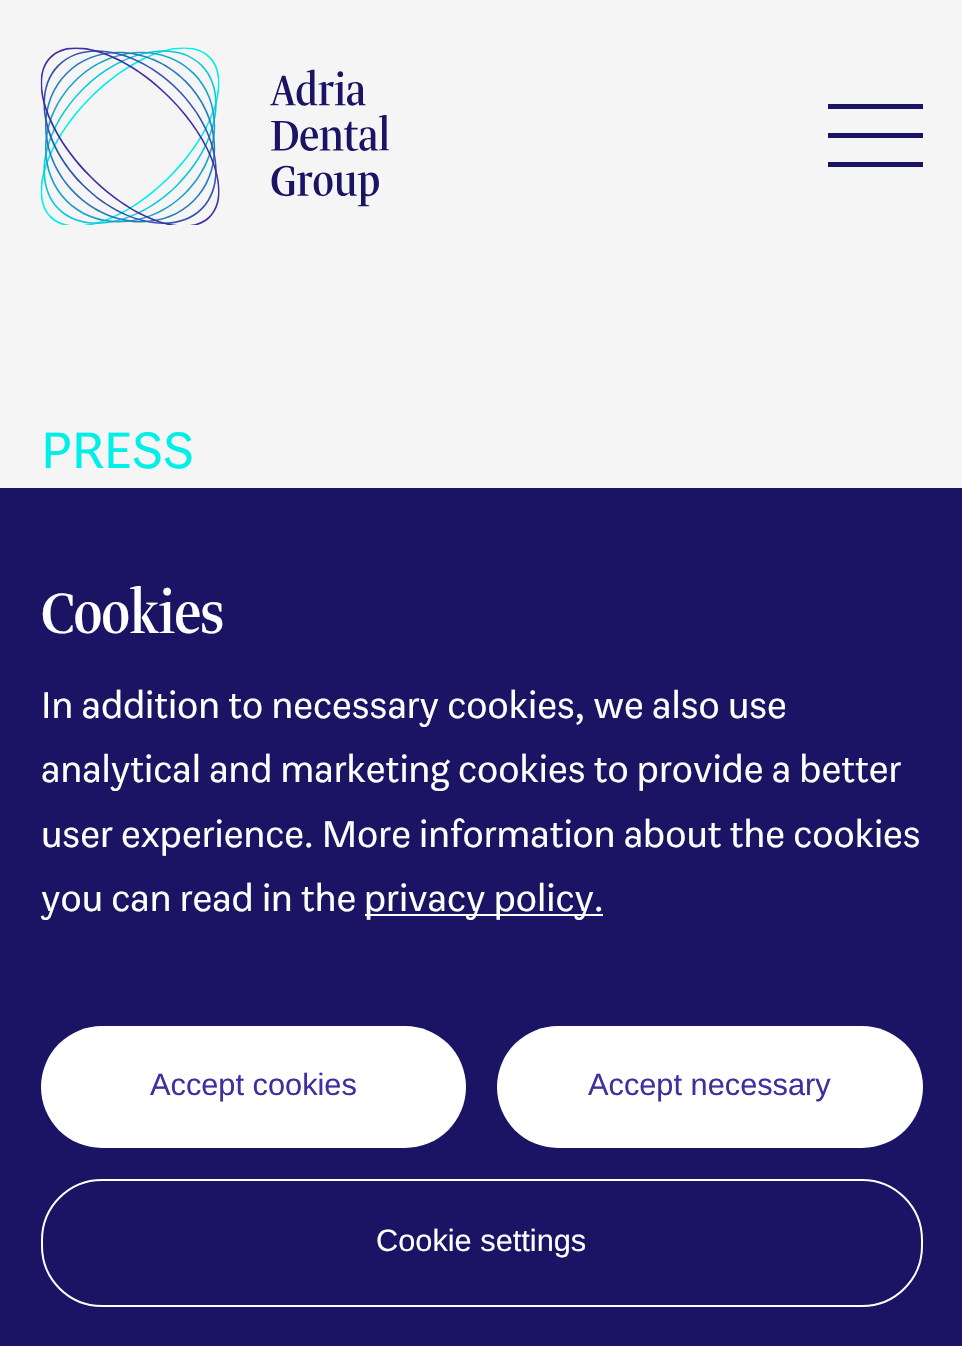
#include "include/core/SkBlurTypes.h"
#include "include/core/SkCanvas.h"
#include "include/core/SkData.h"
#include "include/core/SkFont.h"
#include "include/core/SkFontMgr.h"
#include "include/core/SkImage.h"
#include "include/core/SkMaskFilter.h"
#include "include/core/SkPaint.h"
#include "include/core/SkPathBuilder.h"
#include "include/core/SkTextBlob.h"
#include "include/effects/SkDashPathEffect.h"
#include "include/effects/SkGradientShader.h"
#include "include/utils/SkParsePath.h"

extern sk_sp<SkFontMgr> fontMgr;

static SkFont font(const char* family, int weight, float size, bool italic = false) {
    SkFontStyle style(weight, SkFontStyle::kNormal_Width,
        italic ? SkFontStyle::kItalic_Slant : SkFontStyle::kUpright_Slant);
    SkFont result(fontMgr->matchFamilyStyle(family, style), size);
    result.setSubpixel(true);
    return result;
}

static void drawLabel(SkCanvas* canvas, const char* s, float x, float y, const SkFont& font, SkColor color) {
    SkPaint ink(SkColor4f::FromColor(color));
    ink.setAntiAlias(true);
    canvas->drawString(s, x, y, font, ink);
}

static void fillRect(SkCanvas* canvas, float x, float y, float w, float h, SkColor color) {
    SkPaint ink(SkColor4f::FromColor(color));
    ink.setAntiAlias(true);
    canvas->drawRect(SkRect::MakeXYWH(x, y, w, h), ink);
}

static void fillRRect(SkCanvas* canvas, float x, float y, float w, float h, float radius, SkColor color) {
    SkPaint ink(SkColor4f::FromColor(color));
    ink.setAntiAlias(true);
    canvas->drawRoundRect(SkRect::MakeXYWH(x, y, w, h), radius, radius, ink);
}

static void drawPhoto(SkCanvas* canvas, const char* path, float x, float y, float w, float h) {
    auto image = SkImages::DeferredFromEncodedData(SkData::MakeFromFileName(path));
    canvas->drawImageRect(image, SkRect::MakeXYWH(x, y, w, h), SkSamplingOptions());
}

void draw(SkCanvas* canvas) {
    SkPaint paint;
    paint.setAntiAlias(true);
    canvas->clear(0xFFF5F5F5);
    drawPhoto(canvas, "assets/img1.png", 40, 47, 350, 178);
    fillRect(canvas, 828, 104, 95, 5, 0xFF1B1464);
    fillRect(canvas, 828, 162, 95, 5, 0xFF1B1464);
    fillRect(canvas, 828, 133, 95, 5, 0xFF1B1464);
    SkFont font1 = font("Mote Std", 400, 56.5f);
    drawLabel(canvas, "PRESS", 41, 468, font1, 0xFF00EFE8);
    fillRect(canvas, 0, 488, 962, 858, 0xFF1B1464);
    SkFont font2 = font("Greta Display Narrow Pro", 400, 67);
    drawLabel(canvas, "Cookies", 41, 633, font2, 0xFFFFFFFF);
    SkFont font3 = font("Mote Std", 400, 41.1f);
    drawLabel(canvas, "In addition to necessary cookies, we also use", 41, 718, font3, 0xFFFFFFFF);
    drawLabel(canvas, "analytical and marketing cookies to provide a better", 41, 782, font3, 0xFFFFFFFF);
    drawLabel(canvas, "user experience. More information about the cookies", 41, 847, font3, 0xFFFFFFFF);
    drawLabel(canvas, "you can read in the", 41, 911, font3, 0xFFFFFFFF);
    fillRect(canvas, 365, 914, 238, 2, 0xFFFFFFFF);
    drawLabel(canvas, "privacy policy.", 364, 911, font3, 0xFFFFFFFF);
    fillRRect(canvas, 41, 1026, 425, 122, 61, 0xFFFFFFFF);
    SkFont font4 = font("Liberation Sans", 400, 30.75f);
    drawLabel(canvas, "Accept cookies", 150, 1095, font4, 0xFF412F9F);
    fillRRect(canvas, 497, 1026, 426, 122, 61, 0xFFFFFFFF);
    drawLabel(canvas, "Accept necessary", 588, 1095, font4, 0xFF412F9F);
    paint.setStroke(true);
    paint.setStrokeWidth(2);
    paint.setColor(0xFFFFFFFF);
    canvas->drawRoundRect(SkRect::MakeXYWH(42, 1180, 880, 126), 60, 60, paint);
    drawLabel(canvas, "Cookie settings", 376, 1251, font4, 0xFFFFFFFF);
}
